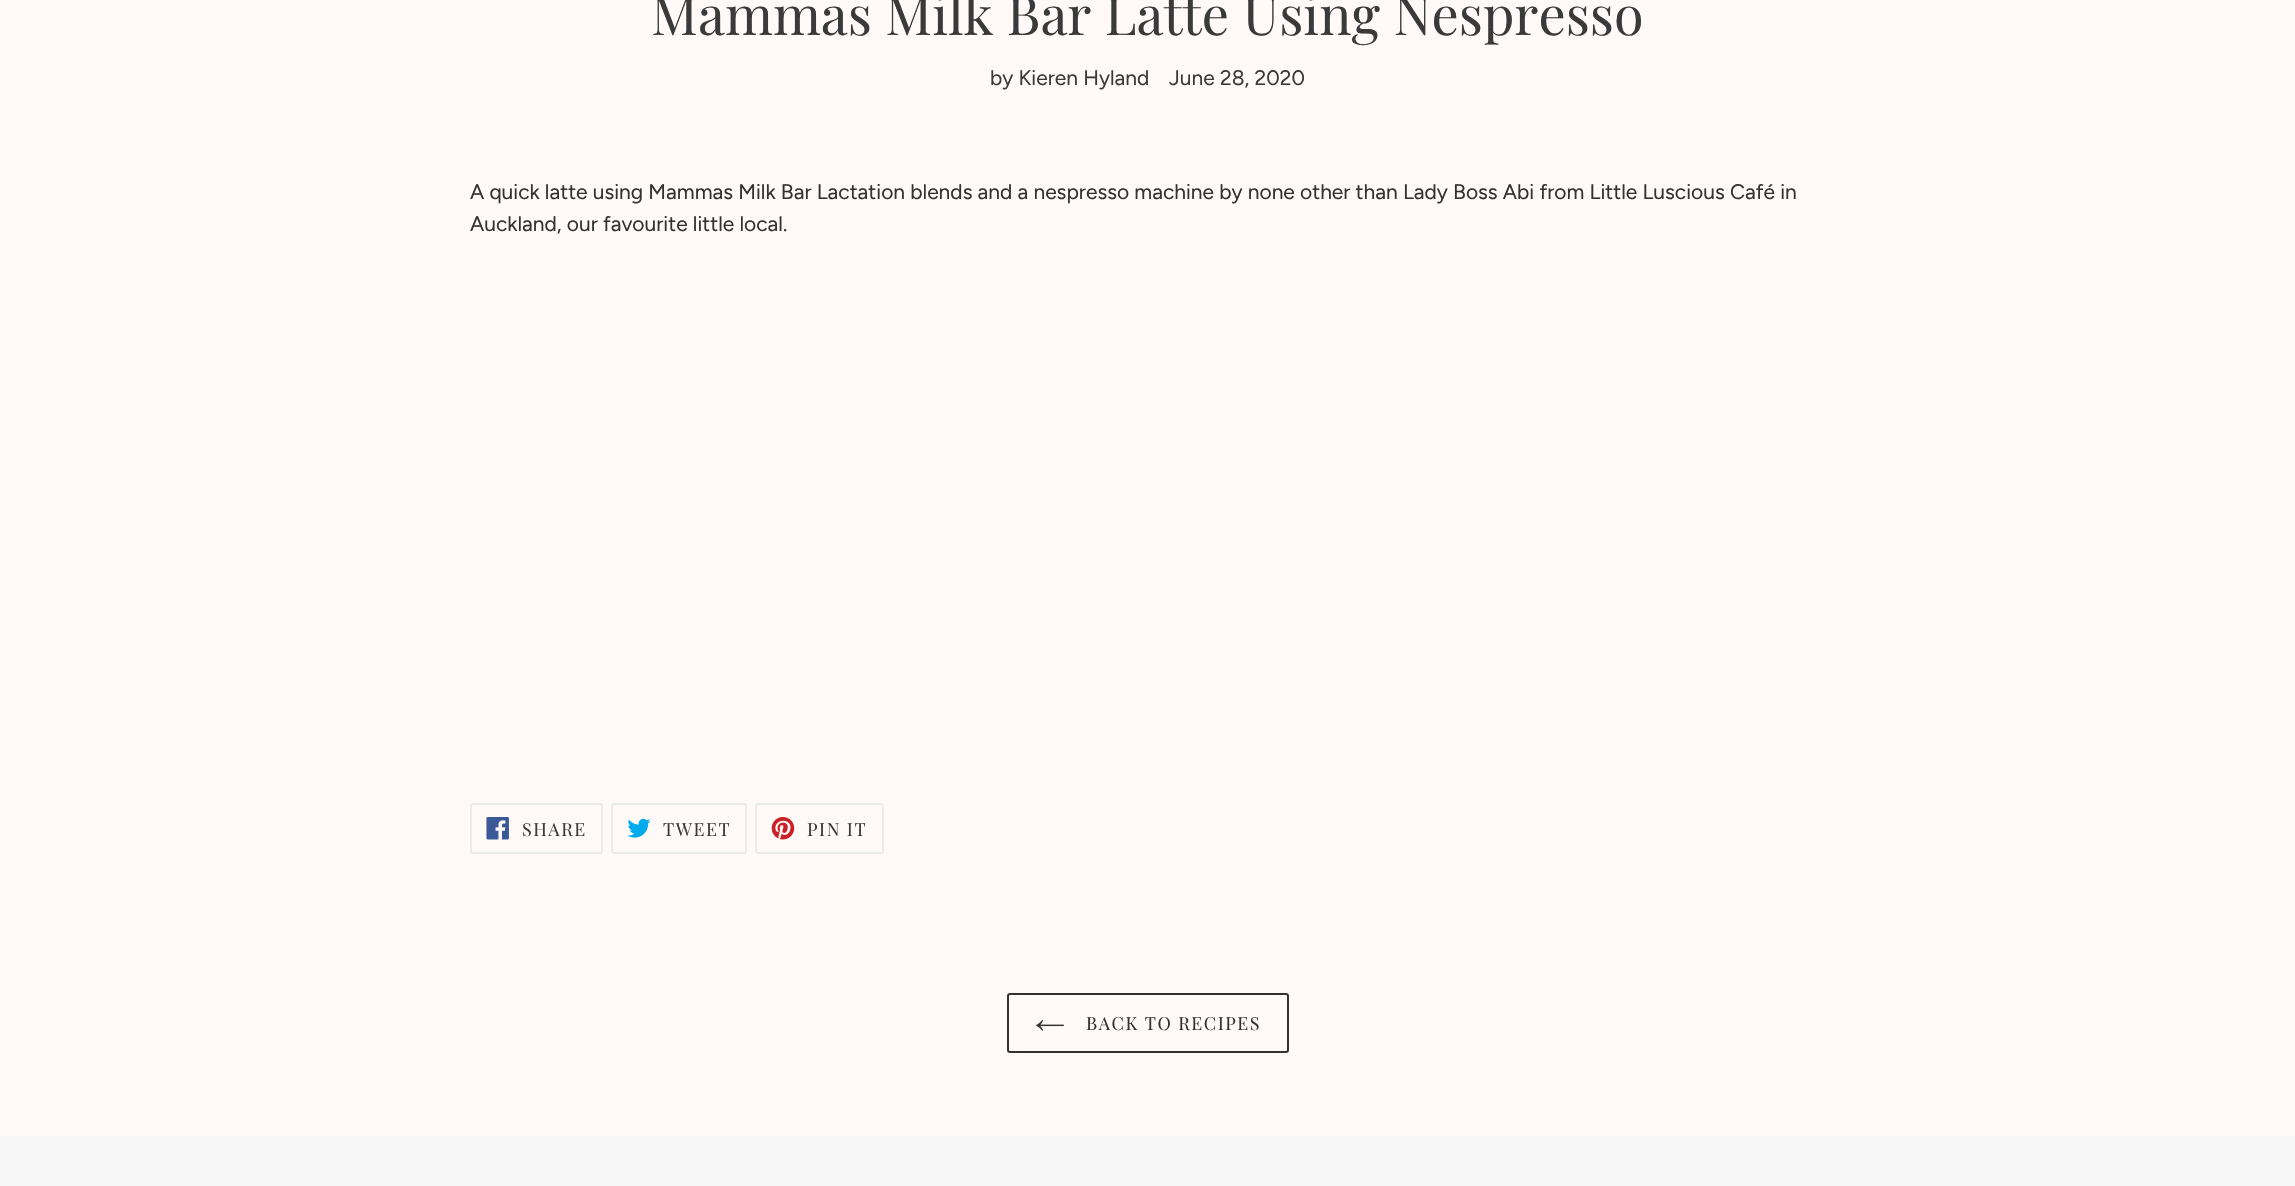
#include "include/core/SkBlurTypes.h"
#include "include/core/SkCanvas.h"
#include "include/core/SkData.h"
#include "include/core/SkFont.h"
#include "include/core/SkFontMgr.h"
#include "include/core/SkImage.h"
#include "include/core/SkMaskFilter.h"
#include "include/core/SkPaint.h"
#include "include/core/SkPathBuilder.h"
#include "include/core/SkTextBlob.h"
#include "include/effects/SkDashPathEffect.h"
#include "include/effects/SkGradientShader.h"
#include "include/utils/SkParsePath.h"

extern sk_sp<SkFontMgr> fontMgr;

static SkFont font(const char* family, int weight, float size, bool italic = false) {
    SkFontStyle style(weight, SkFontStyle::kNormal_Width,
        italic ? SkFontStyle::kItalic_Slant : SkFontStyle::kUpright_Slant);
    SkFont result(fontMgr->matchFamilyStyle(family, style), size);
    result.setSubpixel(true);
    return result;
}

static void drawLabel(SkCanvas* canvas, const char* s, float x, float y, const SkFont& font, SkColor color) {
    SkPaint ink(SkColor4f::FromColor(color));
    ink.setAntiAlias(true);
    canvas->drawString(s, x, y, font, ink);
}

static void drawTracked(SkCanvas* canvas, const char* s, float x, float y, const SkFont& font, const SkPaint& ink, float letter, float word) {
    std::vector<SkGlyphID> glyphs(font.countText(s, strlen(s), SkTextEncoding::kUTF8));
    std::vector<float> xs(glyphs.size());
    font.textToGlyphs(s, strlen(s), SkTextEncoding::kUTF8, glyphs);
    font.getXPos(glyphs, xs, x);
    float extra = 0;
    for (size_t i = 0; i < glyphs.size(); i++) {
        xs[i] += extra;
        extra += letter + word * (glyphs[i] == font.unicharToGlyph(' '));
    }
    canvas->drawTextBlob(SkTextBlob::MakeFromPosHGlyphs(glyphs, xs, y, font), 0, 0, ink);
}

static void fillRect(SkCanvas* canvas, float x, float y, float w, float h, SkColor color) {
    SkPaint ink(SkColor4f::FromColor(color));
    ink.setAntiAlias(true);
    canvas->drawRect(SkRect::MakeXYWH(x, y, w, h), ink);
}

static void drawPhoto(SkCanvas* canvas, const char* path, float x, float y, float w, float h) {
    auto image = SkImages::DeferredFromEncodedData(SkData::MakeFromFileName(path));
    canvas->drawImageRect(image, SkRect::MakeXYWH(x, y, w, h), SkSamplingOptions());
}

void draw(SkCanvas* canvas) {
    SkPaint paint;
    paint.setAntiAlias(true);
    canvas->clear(0xFFFFF9F7);
    SkFont font1 = font("Playfair Display", 400, 54);
    drawLabel(canvas, "Mammas Milk Bar Latte Using Nespresso", 651, 35, font1, 0xFF3A3A3A);
    SkFont font2 = font("Figtree", 400, 21);
    drawLabel(canvas, "by Kieren Hyland", 990, 85, font2, 0xFF3A3A3A);
    drawLabel(canvas, "June 28, 2020", 1169, 85, font2, 0xFF3A3A3A);
    drawLabel(canvas, "A quick latte using Mammas Milk Bar Lactation blends and a nespresso machine by none other than Lady Boss Abi from Little Luscious Café in", 470, 199, font2, 0xFF333232);
    drawLabel(canvas, "Auckland, our favourite little local.", 470, 231, font2, 0xFF333232);
    paint.setStroke(true);
    paint.setStrokeWidth(2);
    paint.setColor(0xFFEBEBEB);
    canvas->drawRoundRect(SkRect::MakeXYWH(471, 804, 131, 49), 2, 2, paint);
    drawPhoto(canvas, "assets/img1.png", 486, 817, 23, 23);
    SkFont font3 = font("Playfair Display", 400, 18);
    paint.setStroke(false);
    paint.setColor(0xFF3A3A3A);
    drawTracked(canvas, "SHARE", 522, 836, font3, paint, 1.5f, 0);
    paint.setStroke(true);
    paint.setColor(0xFFEBEBEB);
    canvas->drawRoundRect(SkRect::MakeXYWH(612, 804, 134, 49), 2, 2, paint);
    drawPhoto(canvas, "assets/img2.png", 627, 818, 24, 20);
    paint.setStroke(false);
    paint.setColor(0xFF3A3A3A);
    drawTracked(canvas, "TWEET", 663, 836, font3, paint, 1.5f, 0);
    paint.setStroke(true);
    paint.setColor(0xFFEBEBEB);
    canvas->drawRoundRect(SkRect::MakeXYWH(756, 804, 127, 49), 2, 2, paint);
    drawPhoto(canvas, "assets/img3.png", 771, 817, 24, 23);
    paint.setStroke(false);
    paint.setColor(0xFF3A3A3A);
    drawTracked(canvas, "PIN IT", 807, 836, font3, paint, 1.5f, 0);
    paint.setStroke(true);
    paint.setColor(0xFF333232);
    canvas->drawRoundRect(SkRect::MakeXYWH(1008, 994, 280, 58), 2, 2, paint);
    drawPhoto(canvas, "assets/img4.png", 1036, 1020, 28, 11);
    paint.setStroke(false);
    drawTracked(canvas, "BACK TO RECIPES", 1086, 1030, font3, paint, 1.5f, 0);
    fillRect(canvas, 0, 1136, 2295, 50, 0xFFF6F6F6);
}
